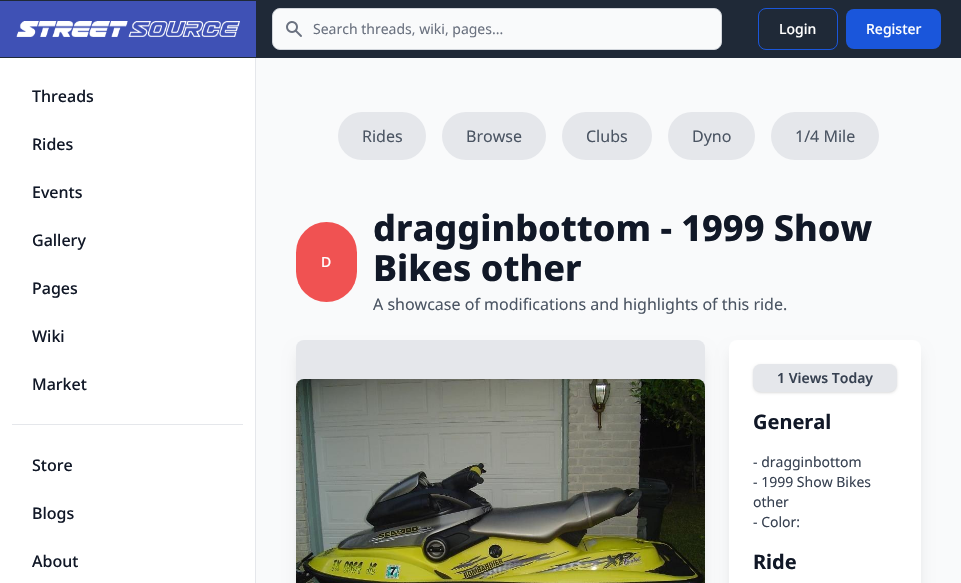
#include "include/core/SkBlurTypes.h"
#include "include/core/SkCanvas.h"
#include "include/core/SkData.h"
#include "include/core/SkFont.h"
#include "include/core/SkFontMgr.h"
#include "include/core/SkImage.h"
#include "include/core/SkMaskFilter.h"
#include "include/core/SkPaint.h"
#include "include/core/SkPathBuilder.h"
#include "include/core/SkTextBlob.h"
#include "include/effects/SkDashPathEffect.h"
#include "include/effects/SkGradientShader.h"
#include "include/utils/SkParsePath.h"

extern sk_sp<SkFontMgr> fontMgr;

static SkFont font(const char* family, int weight, float size, bool italic = false) {
    SkFontStyle style(weight, SkFontStyle::kNormal_Width,
        italic ? SkFontStyle::kItalic_Slant : SkFontStyle::kUpright_Slant);
    SkFont result(fontMgr->matchFamilyStyle(family, style), size);
    result.setSubpixel(true);
    return result;
}

static void drawLabel(SkCanvas* canvas, const char* s, float x, float y, const SkFont& font, SkColor color) {
    SkPaint ink(SkColor4f::FromColor(color));
    ink.setAntiAlias(true);
    canvas->drawString(s, x, y, font, ink);
}

static void fillRect(SkCanvas* canvas, float x, float y, float w, float h, SkColor color) {
    SkPaint ink(SkColor4f::FromColor(color));
    ink.setAntiAlias(true);
    canvas->drawRect(SkRect::MakeXYWH(x, y, w, h), ink);
}

static void fillRRect(SkCanvas* canvas, float x, float y, float w, float h, float radius, SkColor color) {
    SkPaint ink(SkColor4f::FromColor(color));
    ink.setAntiAlias(true);
    canvas->drawRoundRect(SkRect::MakeXYWH(x, y, w, h), radius, radius, ink);
}

static void drawPhoto(SkCanvas* canvas, const char* path, float x, float y, float w, float h) {
    auto image = SkImages::DeferredFromEncodedData(SkData::MakeFromFileName(path));
    canvas->drawImageRect(image, SkRect::MakeXYWH(x, y, w, h), SkSamplingOptions());
}

void draw(SkCanvas* canvas) {
    SkPaint paint;
    paint.setAntiAlias(true);
    canvas->clear(0xFFF9FAFB);
    fillRect(canvas, 0, 0, 961, 58, 0xFF1F2937);
    fillRect(canvas, 0, 1, 256, 56, 0xFF3F51B5);
    drawPhoto(canvas, "assets/img1.png", 16, 21, 224, 16);
    paint.setColor(0xFFF9FAFB);
    canvas->drawRoundRect(SkRect::MakeXYWH(272.5f, 8.5f, 449, 41), 7.5f, 7.5f, paint);
    paint.setStroke(true);
    paint.setStrokeWidth(1);
    paint.setColor(0xFFD1D5DB);
    canvas->drawRoundRect(SkRect::MakeXYWH(272.5f, 8.5f, 449, 41), 7.5f, 7.5f, paint);
    drawPhoto(canvas, "assets/img2.png", 286, 21, 16, 16);
    SkFont font1 = font("Noto Sans", 400, 14);
    drawLabel(canvas, "Search threads, wiki, pages...", 313, 34, font1, 0xFF6B7280);
    paint.setColor(0xFF1A56DB);
    canvas->drawRoundRect(SkRect::MakeXYWH(758.5f, 8.5f, 79, 41), 7.5f, 7.5f, paint);
    SkFont font2 = font("Noto Sans", 500, 14);
    drawLabel(canvas, "Login", 779, 34, font2, 0xFFFFFFFF);
    fillRRect(canvas, 846, 9, 95, 40, 8, 0xFF1A56DB);
    drawLabel(canvas, "Register", 866, 34, font2, 0xFFFFFFFF);
    fillRect(canvas, 0, 58, 255, 525, 0xFFFFFFFF);
    fillRect(canvas, 255, 58, 1, 525, 0xFFE5E7EB);
    SkFont font3 = font("Noto Sans", 500, 16);
    drawLabel(canvas, "Threads", 32, 102, font3, 0xFF111827);
    drawLabel(canvas, "Rides", 32, 150, font3, 0xFF111827);
    drawLabel(canvas, "Events", 32, 198, font3, 0xFF111827);
    drawLabel(canvas, "Gallery", 32, 246, font3, 0xFF111827);
    drawLabel(canvas, "Pages", 32, 294, font3, 0xFF111827);
    drawLabel(canvas, "Wiki", 32, 342, font3, 0xFF111827);
    drawLabel(canvas, "Market", 32, 390, font3, 0xFF111827);
    fillRect(canvas, 12, 424, 231, 1, 0xFFE5E7EB);
    drawLabel(canvas, "Store", 32, 471, font3, 0xFF111827);
    drawLabel(canvas, "Blogs", 32, 519, font3, 0xFF111827);
    drawLabel(canvas, "About", 32, 567, font3, 0xFF111827);
    fillRRect(canvas, 338, 112, 88, 48, 24, 0xFFE5E7EB);
    SkFont font4 = font("Noto Sans", 400, 16);
    drawLabel(canvas, "Rides", 362, 142, font4, 0xFF4B5563);
    fillRRect(canvas, 442, 112, 104, 48, 24, 0xFFE5E7EB);
    drawLabel(canvas, "Browse", 466, 142, font4, 0xFF4B5563);
    fillRRect(canvas, 562, 112, 90, 48, 24, 0xFFE5E7EB);
    drawLabel(canvas, "Clubs", 586, 142, font4, 0xFF4B5563);
    fillRRect(canvas, 668, 112, 87, 48, 24, 0xFFE5E7EB);
    drawLabel(canvas, "Dyno", 692, 142, font4, 0xFF4B5563);
    fillRRect(canvas, 771, 112, 108, 48, 24, 0xFFE5E7EB);
    drawLabel(canvas, "1/4 Mile", 795, 142, font4, 0xFF4B5563);
    fillRRect(canvas, 296, 222, 61, 80, 30.5f, 0xFFF05252);
    drawLabel(canvas, "D", 321, 267, font2, 0xFFFFFFFF);
    SkFont font5 = font("Noto Sans", 800, 36);
    drawLabel(canvas, "dragginbottom - 1999 Show", 373, 241, font5, 0xFF111827);
    drawLabel(canvas, "Bikes other", 373, 281, font5, 0xFF111827);
    drawLabel(canvas, "A showcase of modifications and highlights of this ride.", 373, 310, font4, 0xFF4B5563);
    paint.setStroke(false);
    paint.setColor(0x1A000000);
    paint.setMaskFilter(SkMaskFilter::MakeBlur(kNormal_SkBlurStyle, 7.5f));
    canvas->drawRoundRect(SkRect::MakeXYWH(299, 353, 403, 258), 5, 5, paint);
    paint.setMaskFilter(nullptr);
    fillRRect(canvas, 296, 340, 409, 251, 8, 0xFFE5E7EB);
    drawPhoto(canvas, "assets/img3.png", 296, 379, 409, 204);
    paint.setMaskFilter(SkMaskFilter::MakeBlur(kNormal_SkBlurStyle, 7.5f));
    canvas->drawRoundRect(SkRect::MakeXYWH(732, 353, 186, 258), 5, 5, paint);
    paint.setMaskFilter(nullptr);
    fillRRect(canvas, 729, 340, 192, 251, 8, 0xFFFFFFFF);
    paint.setMaskFilter(SkMaskFilter::MakeBlur(kNormal_SkBlurStyle, 1));
    canvas->drawRoundRect(SkRect::MakeXYWH(754, 366, 142, 26), 7, 7, paint);
    paint.setMaskFilter(nullptr);
    paint.setMaskFilter(SkMaskFilter::MakeBlur(kNormal_SkBlurStyle, 1.5f));
    canvas->drawRoundRect(SkRect::MakeXYWH(753, 365, 144, 28), 8, 8, paint);
    paint.setMaskFilter(nullptr);
    fillRRect(canvas, 753, 364, 144, 28, 8, 0xFFE5E7EB);
    SkFont font6 = font("Noto Sans", 600, 14);
    drawLabel(canvas, "1 Views Today", 777, 383, font6, 0xFF374151);
    SkFont font7 = font("Noto Sans", 700, 20);
    drawLabel(canvas, "General", 753, 429, font7, 0xFF111827);
    drawLabel(canvas, "- dragginbottom", 753, 467, font1, 0xFF374151);
    drawLabel(canvas, "- 1999 Show Bikes", 753, 487, font1, 0xFF374151);
    drawLabel(canvas, "other", 753, 507, font1, 0xFF374151);
    drawLabel(canvas, "- Color:", 753, 527, font1, 0xFF374151);
    drawLabel(canvas, "Ride", 753, 569, font7, 0xFF111827);
}
